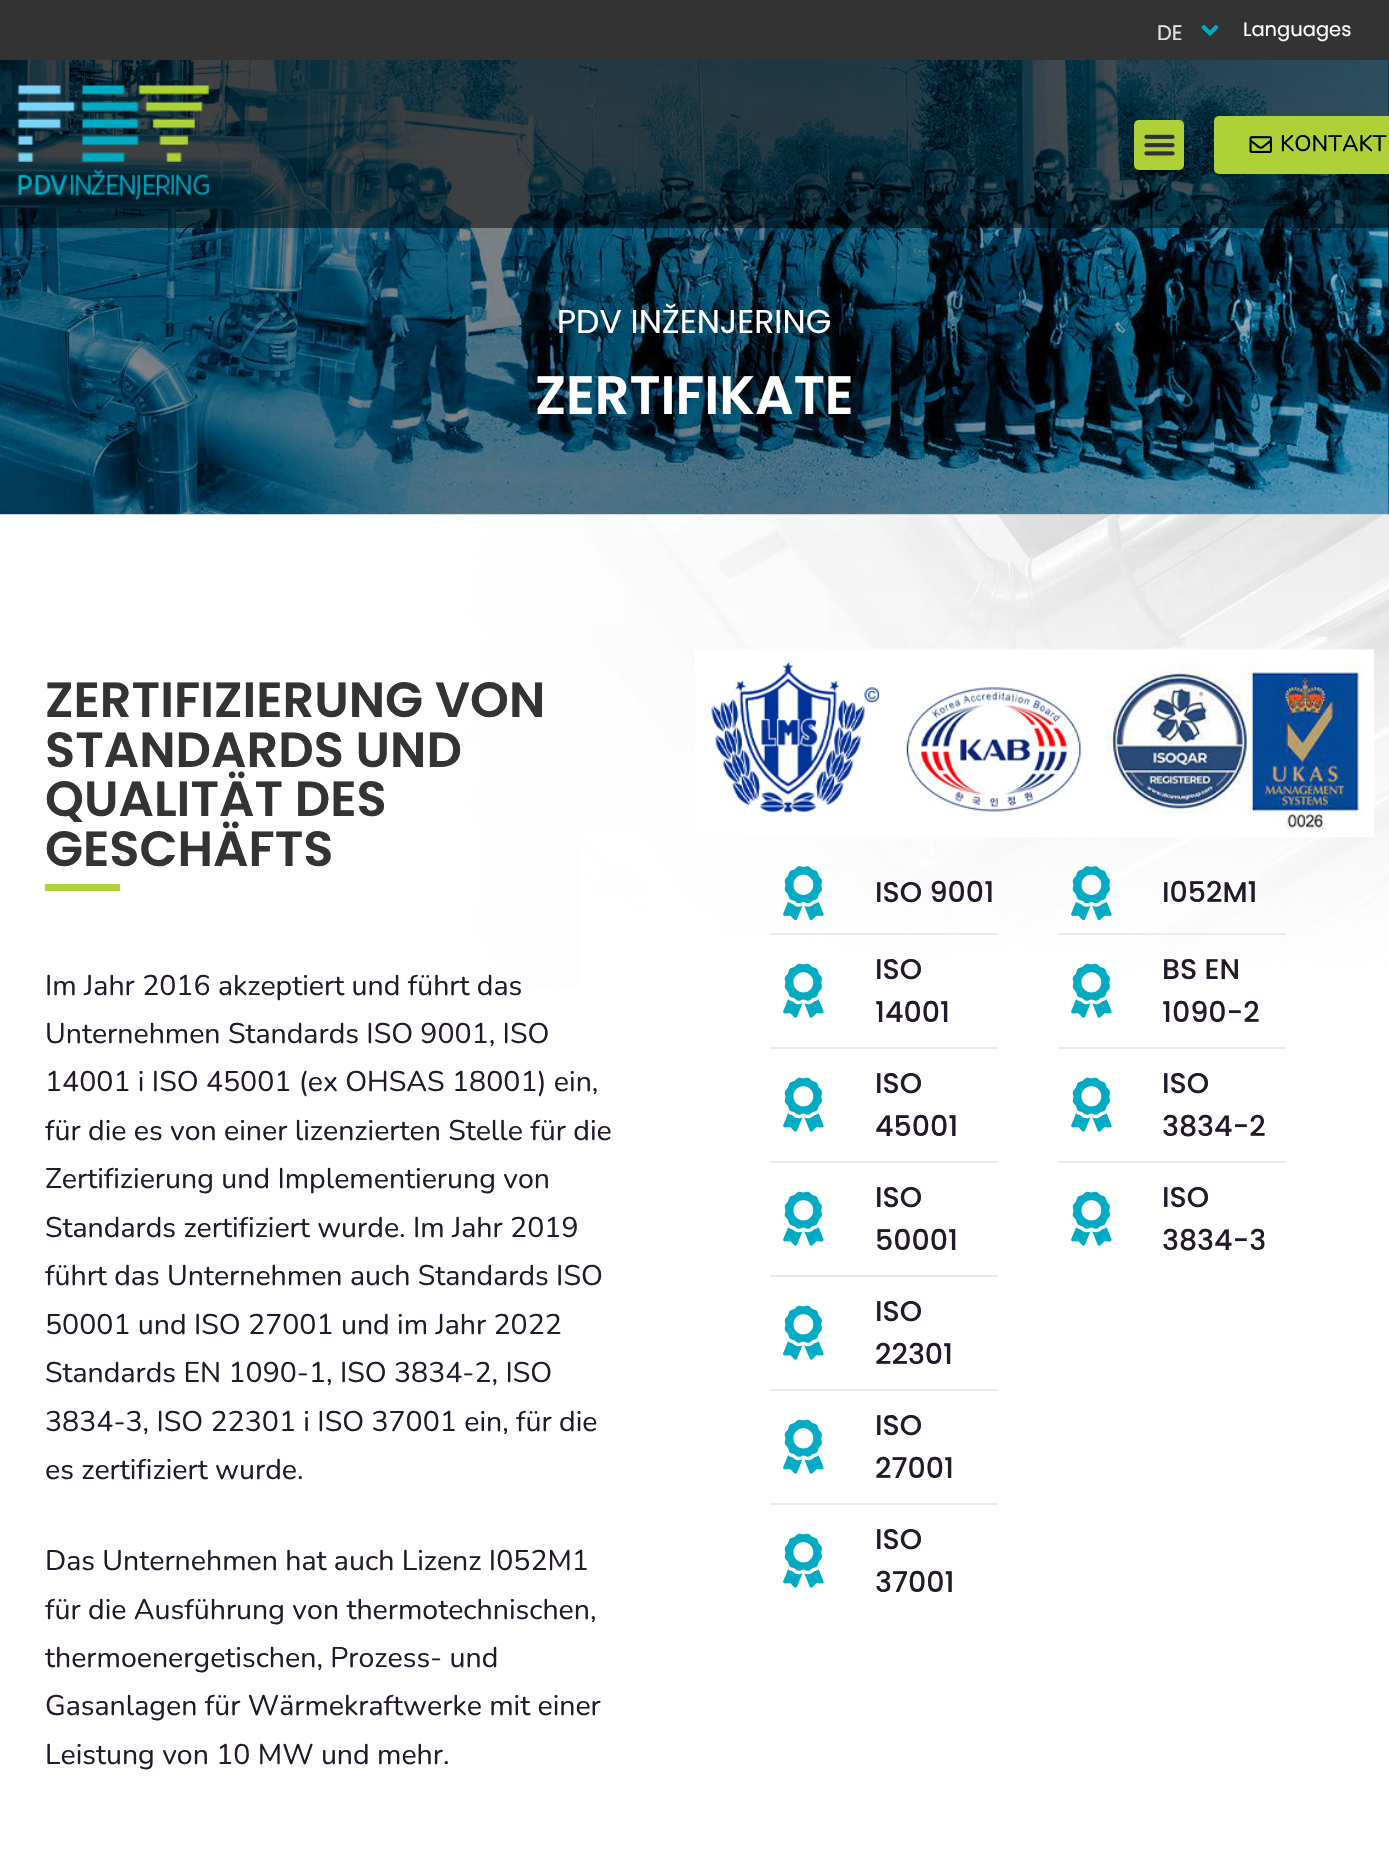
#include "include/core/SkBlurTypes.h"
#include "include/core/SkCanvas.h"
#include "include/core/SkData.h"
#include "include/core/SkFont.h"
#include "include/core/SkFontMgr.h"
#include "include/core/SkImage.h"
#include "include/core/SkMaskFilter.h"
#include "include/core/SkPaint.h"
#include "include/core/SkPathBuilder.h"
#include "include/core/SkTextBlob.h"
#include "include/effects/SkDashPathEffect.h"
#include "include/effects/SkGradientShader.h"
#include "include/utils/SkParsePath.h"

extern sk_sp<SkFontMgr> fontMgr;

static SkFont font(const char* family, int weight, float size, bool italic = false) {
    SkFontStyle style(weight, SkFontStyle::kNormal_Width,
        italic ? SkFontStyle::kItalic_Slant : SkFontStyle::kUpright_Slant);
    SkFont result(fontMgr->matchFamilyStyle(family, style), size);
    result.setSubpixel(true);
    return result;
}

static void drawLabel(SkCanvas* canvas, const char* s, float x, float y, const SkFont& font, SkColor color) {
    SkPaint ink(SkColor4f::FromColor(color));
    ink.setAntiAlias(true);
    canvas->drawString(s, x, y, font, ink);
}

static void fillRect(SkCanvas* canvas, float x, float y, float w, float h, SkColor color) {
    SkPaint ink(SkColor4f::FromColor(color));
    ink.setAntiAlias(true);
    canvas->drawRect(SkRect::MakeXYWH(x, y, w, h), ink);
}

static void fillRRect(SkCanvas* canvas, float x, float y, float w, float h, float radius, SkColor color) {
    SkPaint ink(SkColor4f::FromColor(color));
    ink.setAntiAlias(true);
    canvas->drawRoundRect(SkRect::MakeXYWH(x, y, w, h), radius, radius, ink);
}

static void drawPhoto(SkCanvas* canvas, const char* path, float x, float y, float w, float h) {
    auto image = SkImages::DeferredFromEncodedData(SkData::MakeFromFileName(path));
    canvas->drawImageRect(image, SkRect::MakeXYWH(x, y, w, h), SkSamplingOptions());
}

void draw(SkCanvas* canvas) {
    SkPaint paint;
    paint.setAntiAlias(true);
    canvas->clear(0xFFFFFFFF);
    fillRect(canvas, 0, 0, 1389, 60, 0xFF333333);
    SkFont font1 = font("Poppins", 400, 21);
    drawLabel(canvas, "DE", 1157, 40, font1, 0xFFE2E2E2);
    drawPhoto(canvas, "assets/img1.png", 1201, 25, 18, 11);
    SkFont font2 = font("Poppins", 400, 19.5f);
    drawLabel(canvas, "Languages", 1243, 36, font2, 0xFFFFFFFF);
    drawPhoto(canvas, "assets/img5.png", 0, 60, 1389, 455);
    fillRect(canvas, 0, 60, 1389, 168, 0x80000000);
    drawPhoto(canvas, "assets/img2.png", 17, 85, 193, 116);
    fillRRect(canvas, 1134, 120, 50, 50, 5, 0xFFAED137);
    drawPhoto(canvas, "assets/img3.png", 1144, 134, 31, 22);
    fillRRect(canvas, 1214, 116, 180, 58, 5, 0xFFAED137);
    drawPhoto(canvas, "assets/img4.png", 1249, 136, 23, 17);
    SkFont font3 = font("Nunito", 500, 22.5f);
    drawLabel(canvas, "KONTAKT", 1280, 151, font3, 0xFF000000);
    SkFont font4 = font("Poppins", 400, 33);
    drawLabel(canvas, "PDV INŽENJERING", 557, 333, font4, 0xFFFFFFFF);
    SkFont font5 = font("Poppins", 600, 54);
    drawLabel(canvas, "ZERTIFIKATE", 535, 414, font5, 0xFFFFFFFF);
    drawPhoto(canvas, "assets/img6.png", 0, 514, 1389, 474);
    {
        const SkColor colors[] = {0x00FFFFFF, 0xFFFFFFFF};
        const float stops[] = {0, 0.33f};
        const SkPoint ends[] = {{694, 514}, {695, 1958}};
        paint.setShader(SkGradientShader::MakeLinear(ends, colors, stops, 2, SkTileMode::kClamp));
        paint.setAlpha(255);
    }
    canvas->drawRect(SkRect::MakeXYWH(578, 548, 811, 440), paint);
    SkFont font6 = font("Poppins", 600, 49.5f);
    drawLabel(canvas, "ZERTIFIZIERUNG VON", 45, 717, font6, 0xFF333333);
    drawLabel(canvas, "STANDARDS UND", 45, 767, font6, 0xFF333333);
    drawLabel(canvas, "QUALITÄT DES", 45, 816, font6, 0xFF333333);
    drawLabel(canvas, "GESCHÄFTS", 45, 866, font6, 0xFF333333);
    fillRect(canvas, 45, 884, 75, 7, 0xFFAED137);
    SkFont font7 = font("Nunito", 400, 28.5f);
    drawLabel(canvas, "Im Jahr 2016 akzeptiert und führt das", 45, 995, font7, 0xFF221A2B);
    drawLabel(canvas, "Unternehmen Standards ISO 9001, ISO", 45, 1043, font7, 0xFF221A2B);
    drawLabel(canvas, "14001 i ISO 45001 (ex OHSAS 18001) ein,", 45, 1091, font7, 0xFF221A2B);
    drawLabel(canvas, "für die es von einer lizenzierten Stelle für die", 45, 1140, font7, 0xFF221A2B);
    drawLabel(canvas, "Zertifizierung und Implementierung von", 45, 1188, font7, 0xFF221A2B);
    drawLabel(canvas, "Standards zertifiziert wurde. Im Jahr 2019", 45, 1237, font7, 0xFF221A2B);
    drawLabel(canvas, "führt das Unternehmen auch Standards ISO", 45, 1285, font7, 0xFF221A2B);
    drawLabel(canvas, "50001 und ISO 27001 und im Jahr 2022", 45, 1334, font7, 0xFF221A2B);
    drawLabel(canvas, "Standards EN 1090-1, ISO 3834-2, ISO", 45, 1382, font7, 0xFF221A2B);
    drawLabel(canvas, "3834-3, ISO 22301 i ISO 37001 ein, für die", 45, 1431, font7, 0xFF221A2B);
    drawLabel(canvas, "es zertifiziert wurde.", 45, 1479, font7, 0xFF221A2B);
    drawLabel(canvas, "Das Unternehmen hat auch Lizenz I052M1", 45, 1570, font7, 0xFF221A2B);
    drawLabel(canvas, "für die Ausführung von thermotechnischen,", 45, 1619, font7, 0xFF221A2B);
    drawLabel(canvas, "thermoenergetischen, Prozess- und", 45, 1667, font7, 0xFF221A2B);
    drawLabel(canvas, "Gasanlagen für Wärmekraftwerke mit einer", 45, 1715, font7, 0xFF221A2B);
    drawLabel(canvas, "Leistung von 10 MW und mehr.", 45, 1764, font7, 0xFF221A2B);
    drawPhoto(canvas, "assets/img7.png", 695, 649, 679, 188);
    drawPhoto(canvas, "assets/img8.png", 783, 866, 41, 55);
    SkFont font8 = font("Poppins", 500, 28.5f);
    drawLabel(canvas, "ISO 9001", 875, 902, font8, 0xFF221A2B);
    fillRect(canvas, 770, 933, 228, 2, 0xFFEAEAEA);
    drawPhoto(canvas, "assets/img9.png", 783, 963, 41, 55);
    drawLabel(canvas, "ISO", 875, 979, font8, 0xFF221A2B);
    drawLabel(canvas, "14001", 875, 1022, font8, 0xFF221A2B);
    fillRect(canvas, 770, 1047, 228, 2, 0xFFEAEAEA);
    drawPhoto(canvas, "assets/img10.png", 783, 1077, 41, 55);
    drawLabel(canvas, "ISO", 875, 1093, font8, 0xFF221A2B);
    drawLabel(canvas, "45001", 875, 1136, font8, 0xFF221A2B);
    fillRect(canvas, 770, 1161, 228, 2, 0xFFEAEAEA);
    drawPhoto(canvas, "assets/img10.png", 783, 1191, 41, 55);
    drawLabel(canvas, "ISO", 875, 1207, font8, 0xFF221A2B);
    drawLabel(canvas, "50001", 875, 1250, font8, 0xFF221A2B);
    fillRect(canvas, 770, 1275, 228, 2, 0xFFEAEAEA);
    drawPhoto(canvas, "assets/img10.png", 783, 1305, 41, 55);
    drawLabel(canvas, "ISO", 875, 1321, font8, 0xFF221A2B);
    drawLabel(canvas, "22301", 875, 1364, font8, 0xFF221A2B);
    fillRect(canvas, 770, 1389, 228, 2, 0xFFEAEAEA);
    drawPhoto(canvas, "assets/img10.png", 783, 1419, 41, 55);
    drawLabel(canvas, "ISO", 875, 1435, font8, 0xFF221A2B);
    drawLabel(canvas, "27001", 875, 1478, font8, 0xFF221A2B);
    fillRect(canvas, 770, 1503, 228, 2, 0xFFEAEAEA);
    drawPhoto(canvas, "assets/img10.png", 783, 1533, 41, 55);
    drawLabel(canvas, "ISO", 875, 1549, font8, 0xFF221A2B);
    drawLabel(canvas, "37001", 875, 1592, font8, 0xFF221A2B);
    drawPhoto(canvas, "assets/img11.png", 1071, 866, 41, 55);
    drawLabel(canvas, "I052M1", 1162, 902, font8, 0xFF221A2B);
    fillRect(canvas, 1058, 933, 228, 2, 0xFFEAEAEA);
    drawPhoto(canvas, "assets/img12.png", 1071, 963, 41, 55);
    drawLabel(canvas, "BS EN", 1162, 979, font8, 0xFF221A2B);
    drawLabel(canvas, "1090-2", 1162, 1022, font8, 0xFF221A2B);
    fillRect(canvas, 1058, 1047, 228, 2, 0xFFEAEAEA);
    drawPhoto(canvas, "assets/img10.png", 1071, 1077, 41, 55);
    drawLabel(canvas, "ISO", 1162, 1093, font8, 0xFF221A2B);
    drawLabel(canvas, "3834-2", 1162, 1136, font8, 0xFF221A2B);
    fillRect(canvas, 1058, 1161, 228, 2, 0xFFEAEAEA);
    drawPhoto(canvas, "assets/img10.png", 1071, 1191, 41, 55);
    drawLabel(canvas, "ISO", 1162, 1207, font8, 0xFF221A2B);
    drawLabel(canvas, "3834-3", 1162, 1250, font8, 0xFF221A2B);
}
